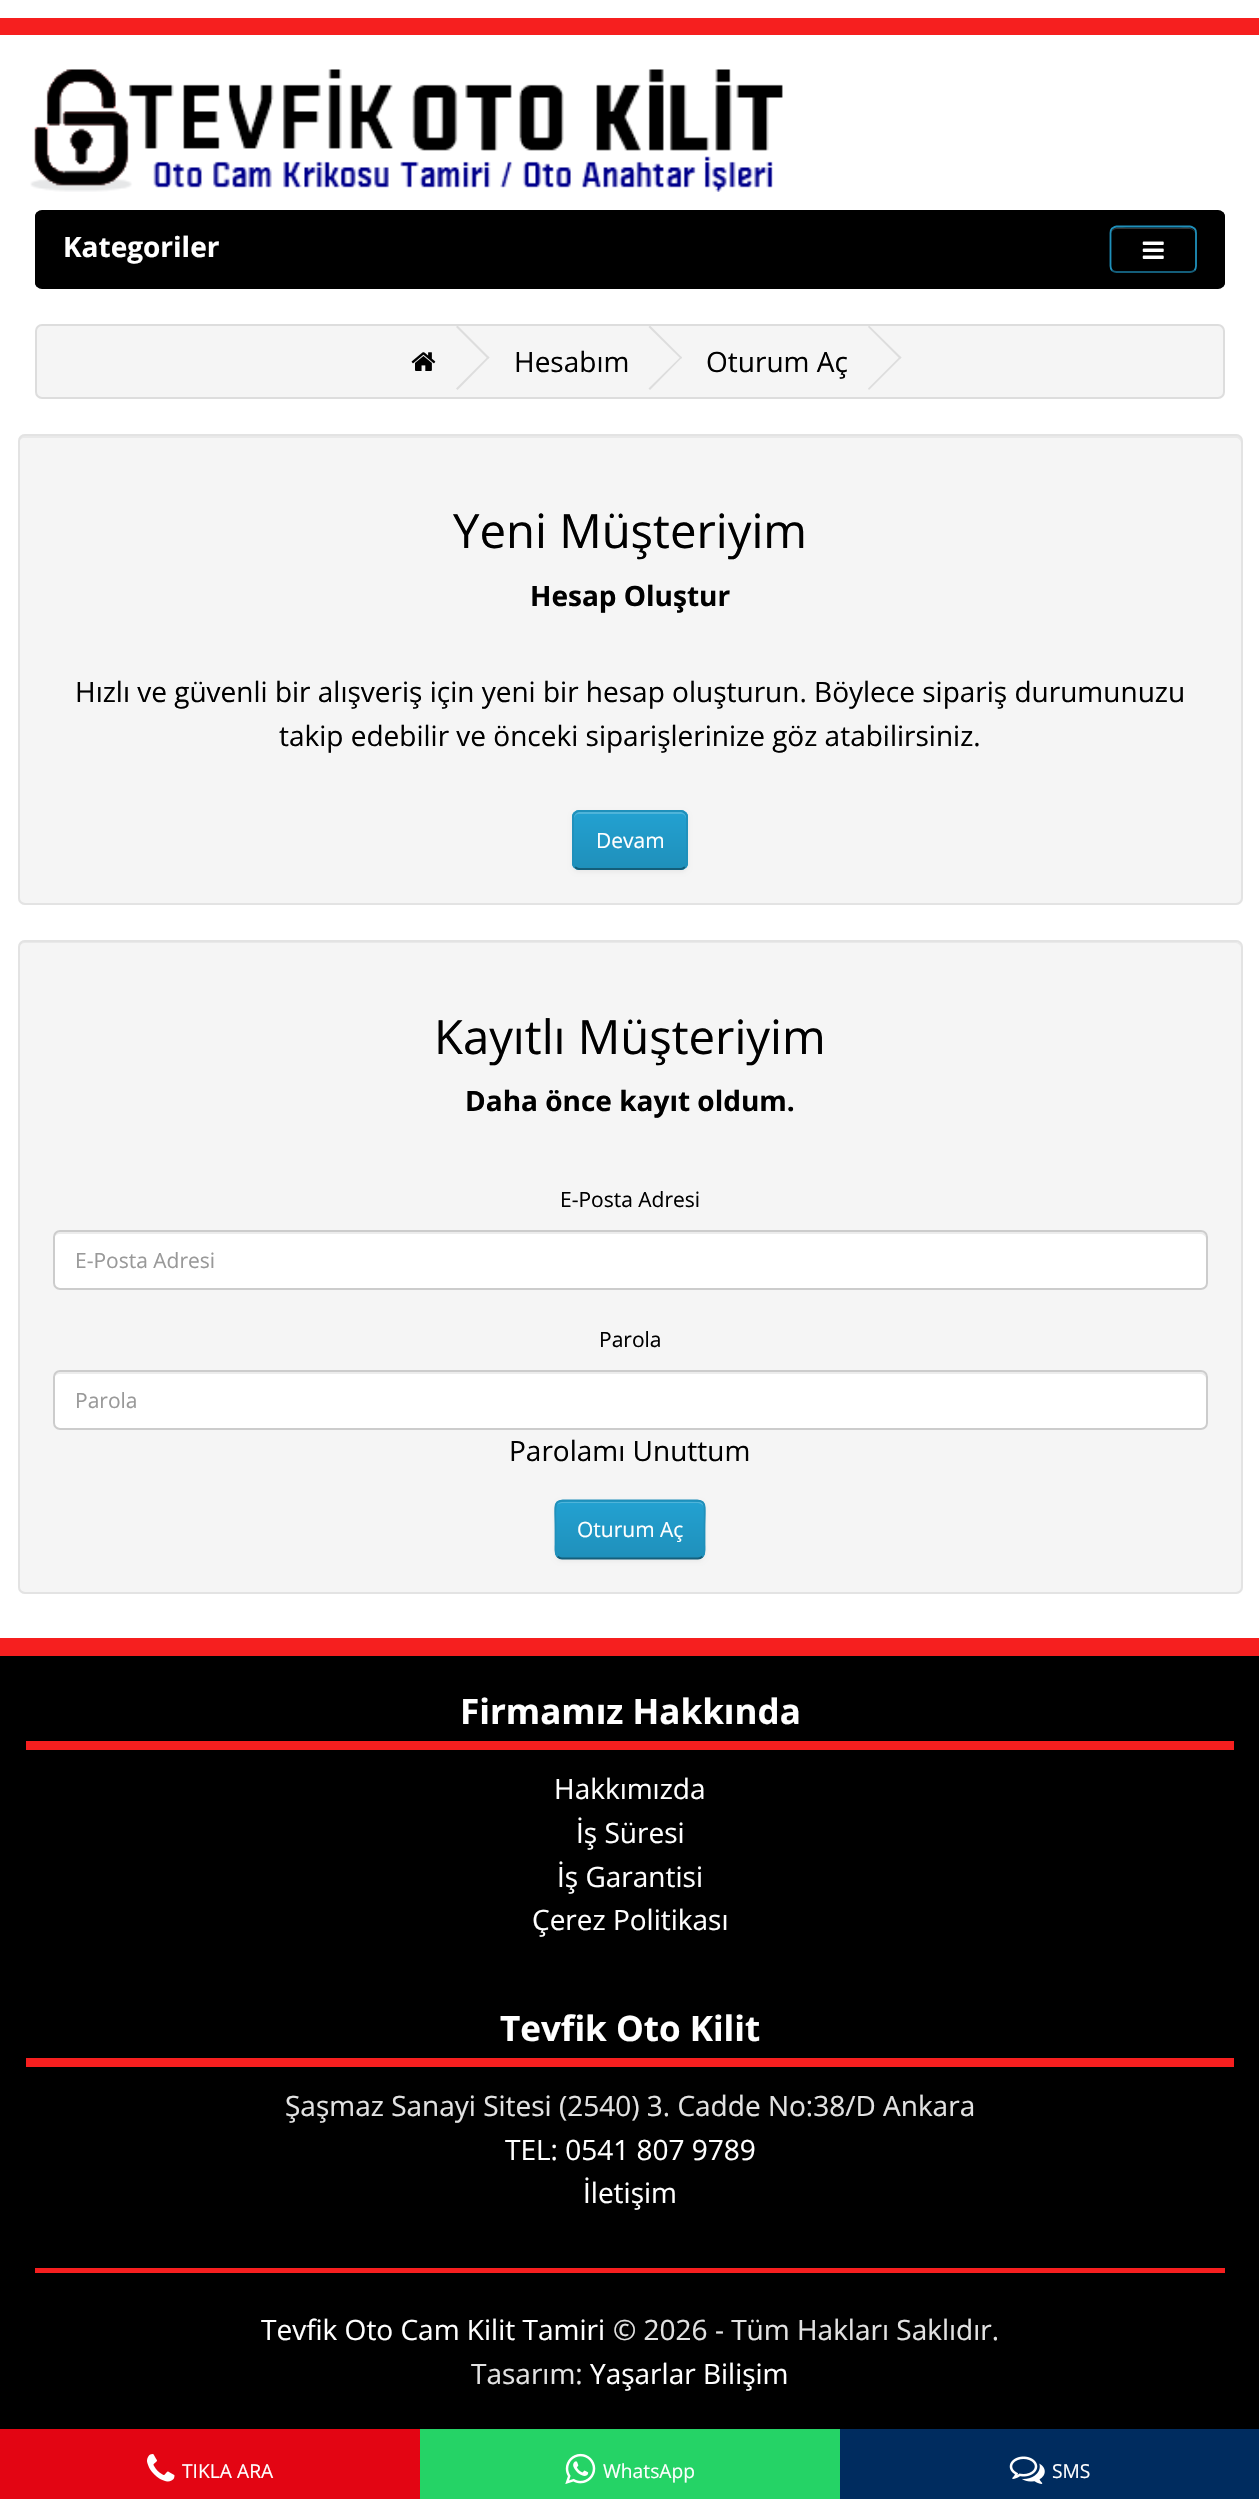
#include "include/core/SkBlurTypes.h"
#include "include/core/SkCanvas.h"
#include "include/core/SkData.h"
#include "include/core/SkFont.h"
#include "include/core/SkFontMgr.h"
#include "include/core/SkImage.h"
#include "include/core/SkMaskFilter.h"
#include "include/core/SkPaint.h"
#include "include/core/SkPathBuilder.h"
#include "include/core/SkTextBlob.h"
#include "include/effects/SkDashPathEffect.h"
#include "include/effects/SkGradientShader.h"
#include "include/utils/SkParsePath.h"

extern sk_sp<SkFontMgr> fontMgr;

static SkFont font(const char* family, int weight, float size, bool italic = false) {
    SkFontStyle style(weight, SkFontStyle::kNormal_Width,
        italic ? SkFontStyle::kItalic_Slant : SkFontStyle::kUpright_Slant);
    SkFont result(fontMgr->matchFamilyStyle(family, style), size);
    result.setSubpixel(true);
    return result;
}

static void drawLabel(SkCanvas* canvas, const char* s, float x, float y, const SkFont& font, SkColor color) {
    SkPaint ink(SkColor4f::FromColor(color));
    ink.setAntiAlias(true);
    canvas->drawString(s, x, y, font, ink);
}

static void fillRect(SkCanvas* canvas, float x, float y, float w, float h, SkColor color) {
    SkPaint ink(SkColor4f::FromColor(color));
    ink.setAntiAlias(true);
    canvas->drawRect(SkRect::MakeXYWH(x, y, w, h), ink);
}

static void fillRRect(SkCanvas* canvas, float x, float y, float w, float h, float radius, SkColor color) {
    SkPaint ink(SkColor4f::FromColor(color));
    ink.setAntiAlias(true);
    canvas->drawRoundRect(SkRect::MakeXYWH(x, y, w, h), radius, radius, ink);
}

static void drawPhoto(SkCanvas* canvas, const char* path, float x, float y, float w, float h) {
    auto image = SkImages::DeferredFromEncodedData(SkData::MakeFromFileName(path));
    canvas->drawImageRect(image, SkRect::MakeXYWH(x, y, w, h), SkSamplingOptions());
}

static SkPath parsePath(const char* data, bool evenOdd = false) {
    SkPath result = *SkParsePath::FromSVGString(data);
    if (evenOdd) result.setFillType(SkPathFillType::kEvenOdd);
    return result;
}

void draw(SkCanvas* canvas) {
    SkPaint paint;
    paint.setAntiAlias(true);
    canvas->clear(0xFFFFFFFF);
    fillRect(canvas, 0, 18, 1259, 17, 0xFFF61F1F);
    drawPhoto(canvas, "assets/img1.png", 30, 69, 753, 123);
    canvas->save();
    canvas->clipPath(parsePath("M42 210H1218C1222 210 1225 213 1225 217V282C1225 286 1222 289 1218 289H42C38 289 35 286 35 282V217C35 213 38 210 42 210Z"), true);
    fillRect(canvas, 35, 212, 1190, 75, 0xFF000000);
    canvas->restore();
    paint.setStroke(true);
    paint.setStrokeWidth(2);
    paint.setColor(0xFF000000);
    canvas->drawRoundRect(SkRect::MakeXYWH(36, 211, 1188, 77), 6, 6, paint);
    SkFont font1 = font("Open Sans", 700, 28);
    drawLabel(canvas, "Kategoriler", 63, 257, font1, 0xFFFFFFFF);
    paint.setStroke(false);
    paint.setColor(0xFF333333);
    canvas->drawPath(parsePath("M1116 229H1190C1193 229 1195 232 1195 234C1195 225 1183 228 1178 228H1128C1123 228 1111 225 1111 234C1111 232 1114 229 1116 229Z"), paint);
    paint.setStroke(true);
    paint.setStrokeWidth(1.8f);
    paint.setColor(0xFF145E7A);
    canvas->drawPath(parsePath("M1194.5 270.5C1193 271.5 1191.5 272 1190 272H1116.5C1115 272 1113.5 271.5 1112 270.5"), paint);
    paint.setColor(0xFF1F90BB);
    canvas->drawPath(parsePath("M1112 270.5C1111 269 1110.5 267.5 1110.5 266V233C1110.5 231 1111 229.5 1112 228.5C1113.5 227.5 1115 226.5 1116.5 226.5H1190C1191.5 226.5 1193 227.5 1194.5 228.5C1195.5 229.5 1196 231 1196 233V266C1196 267.5 1195.5 269 1194.5 270.5"), paint);
    drawPhoto(canvas, "assets/img2.png", 1142, 241, 22, 18);
    paint.setStroke(false);
    paint.setColor(0xFFF5F5F5);
    canvas->drawRoundRect(SkRect::MakeXYWH(36, 325, 1188, 73), 6, 6, paint);
    paint.setStroke(true);
    paint.setStrokeWidth(2);
    paint.setColor(0xFFDDDDDD);
    canvas->drawRoundRect(SkRect::MakeXYWH(36, 325, 1188, 73), 6, 6, paint);
    drawPhoto(canvas, "assets/img3.png", 411, 352, 25, 19);
    paint.setStroke(false);
    canvas->drawPath(parsePath("M456 327L457.5 325.5L489.5 357.5L488 359Z"), paint);
    canvas->drawPath(parsePath("M456 388.5L488 356.5L489.5 357.5L457.5 390Z"), paint);
    SkFont font2 = font("Open Sans", 400, 28);
    drawLabel(canvas, "Hesabım", 514, 372, font2, 0xFF000000);
    canvas->drawPath(parsePath("M648.5 327L650 325.5L682 357.5L681 359Z"), paint);
    canvas->drawPath(parsePath("M648.5 388.5L681 356.5L682 357.5L650 390Z"), paint);
    drawLabel(canvas, "Oturum Aç", 706, 372, font2, 0xFF000000);
    canvas->drawPath(parsePath("M868 327L869 325.5L901.5 357.5L900 359Z"), paint);
    canvas->drawPath(parsePath("M868 388.5L900 356.5L901.5 357.5L869 390Z"), paint);
    fillRRect(canvas, 18, 434, 1225, 471, 7, 0xFFF5F5F5);
    paint.setColor(0xFFE9E9E9);
    canvas->drawPath(parsePath("M24 438H1236C1238 438 1241 440 1241 443V441C1241 438 1239 436 1236 436H24C21 436 19 438 19 441V443C19 440 22 438 24 438Z"), paint);
    paint.setStroke(true);
    paint.setColor(0xFFE3E3E3);
    canvas->drawRoundRect(SkRect::MakeXYWH(19, 435, 1223, 469), 6, 6, paint);
    SkFont font3 = font("Open Sans", 400, 47.25f);
    drawLabel(canvas, "Yeni Müşteriyim", 453, 548, font3, 0xFF000000);
    drawLabel(canvas, "Hesap Oluştur", 530, 606, font1, 0xFF000000);
    drawLabel(canvas, "Hızlı ve güvenli bir alışveriş için yeni bir hesap oluşturun. Böylece sipariş durumunuzu", 75, 702, font2, 0xFF000000);
    drawLabel(canvas, "takip edebilir ve önceki siparişlerinize göz atabilirsiniz.", 279, 746, font2, 0xFF000000);
    paint.setStroke(false);
    paint.setColor(0x0D000000);
    paint.setMaskFilter(SkMaskFilter::MakeBlur(kNormal_SkBlurStyle, 2));
    canvas->drawRoundRect(SkRect::MakeXYWH(572, 812, 116, 60), 7, 7, paint);
    paint.setMaskFilter(nullptr);
    fillRRect(canvas, 572, 810, 116, 60, 7, 0xFF229AC8);
    canvas->save();
    canvas->clipPath(parsePath("M579 810H681C685 810 688 813 688 817V863C688 867 685 870 681 870H579C575 870 572 867 572 863V817C572 813 575 810 579 810Z"), true);
    {
        const SkColor colors[] = {0xFF23A1D1, 0xFF1F90BB};
        const float stops[] = {0, 1};
        const SkPoint ends[] = {{630, 812}, {630, 868}};
        paint.setShader(SkGradientShader::MakeLinear(ends, colors, stops, 2, SkTileMode::kClamp));
        paint.setAlpha(255);
    }
    canvas->drawRect(SkRect::MakeXYWH(572, 812, 116, 56), paint);
    canvas->restore();
    paint.setShader(nullptr);
    paint.setColor(0xFF4FB4DA);
    canvas->drawPath(parsePath("M579 814H681C684 814 686 816 686 819V817C686 814 684 812 681 812H579C576 812 574 814 574 817V819C574 816 576 814 579 814Z"), paint);
    paint.setStroke(true);
    paint.setStrokeWidth(1.8f);
    paint.setColor(0xFF145E7A);
    canvas->drawPath(parsePath("M685 867C684 868 682.5 869 681 869H579C577.5 869 576 868 575 867"), paint);
    paint.setColor(0xFF1F90BB);
    canvas->drawPath(parsePath("M575 867C574 866 573 864.5 573 863V817C573 815.5 574 814 575 813C576 812 577.5 811 579 811H681C682.5 811 684 812 685 813C686 814 687 815.5 687 817V863C687 864.5 686 866 685 867"), paint);
    SkFont font4 = font("Open Sans", 400, 21);
    drawLabel(canvas, "Devam", 596, 848, font4, 0xFFFFFFFF);
    fillRRect(canvas, 18, 940, 1225, 654, 7, 0xFFF5F5F5);
    paint.setStroke(false);
    paint.setColor(0xFFE9E9E9);
    canvas->drawPath(parsePath("M24 943H1236C1238 943 1241 946 1241 948C1241 945 1239 942 1236 942H24C21 942 19 945 19 948C19 946 22 943 24 943Z"), paint);
    paint.setStroke(true);
    paint.setStrokeWidth(2);
    paint.setColor(0xFFE3E3E3);
    canvas->drawRoundRect(SkRect::MakeXYWH(19, 941, 1223, 652), 6, 6, paint);
    drawLabel(canvas, "Kayıtlı Müşteriyim", 434, 1054, font3, 0xFF000000);
    drawLabel(canvas, "Daha önce kayıt oldum.", 465, 1111, font1, 0xFF000000);
    drawLabel(canvas, "E-Posta Adresi", 560, 1207, font4, 0xFF000000);
    fillRRect(canvas, 53, 1230, 1155, 60, 7, 0xFFFFFFFF);
    paint.setStroke(false);
    paint.setColor(0xFFECECEC);
    canvas->drawPath(parsePath("M60 1234H1200C1203 1234 1206 1236 1206 1239V1237C1206 1234 1204 1232 1201 1232H59C56 1232 54 1234 54 1237V1239C54 1236 57 1234 60 1234Z"), paint);
    paint.setStroke(true);
    paint.setColor(0xFFCCCCCC);
    canvas->drawRoundRect(SkRect::MakeXYWH(54, 1231, 1153, 58), 6, 6, paint);
    drawLabel(canvas, "E-Posta Adresi", 75, 1268, font4, 0xFF999999);
    drawLabel(canvas, "Parola", 599, 1347, font4, 0xFF000000);
    fillRRect(canvas, 53, 1370, 1155, 60, 7, 0xFFFFFFFF);
    paint.setStroke(false);
    paint.setColor(0xFFECECEC);
    canvas->drawPath(parsePath("M60 1374H1200C1203 1374 1206 1376 1206 1379V1377C1206 1374 1204 1372 1201 1372H59C56 1372 54 1374 54 1377V1379C54 1376 57 1374 60 1374Z"), paint);
    paint.setStroke(true);
    paint.setColor(0xFFCCCCCC);
    canvas->drawRoundRect(SkRect::MakeXYWH(54, 1371, 1153, 58), 6, 6, paint);
    drawLabel(canvas, "Parola", 75, 1408, font4, 0xFF999999);
    drawLabel(canvas, "Parolamı Unuttum", 509, 1461, font2, 0xFF000000);
    paint.setStroke(false);
    paint.setColor(0x0D000000);
    paint.setMaskFilter(SkMaskFilter::MakeBlur(kNormal_SkBlurStyle, 2));
    canvas->drawRoundRect(SkRect::MakeXYWH(555, 1502, 150, 59), 7, 7, paint);
    paint.setMaskFilter(nullptr);
    fillRRect(canvas, 555, 1500, 150, 59, 7, 0xFF229AC8);
    canvas->save();
    canvas->clipPath(parsePath("M562 1500H698C702 1500 705 1503 705 1507V1552C705 1556 702 1559 698 1559H562C558 1559 555 1556 555 1552V1507C555 1503 558 1500 562 1500Z"), true);
    {
        const SkColor colors[] = {0xFF23A1D1, 0xFF1F90BB};
        const float stops[] = {0, 1};
        const SkPoint ends[] = {{630, 1502}, {630, 1558}};
        paint.setShader(SkGradientShader::MakeLinear(ends, colors, stops, 2, SkTileMode::kClamp));
        paint.setAlpha(255);
    }
    canvas->drawRect(SkRect::MakeXYWH(555, 1502, 150, 56), paint);
    canvas->restore();
    paint.setShader(nullptr);
    paint.setColor(0xFF4FB4DA);
    canvas->drawPath(parsePath("M562 1503H698C701 1503 704 1506 704 1508V1507C704 1504 702 1502 699 1502H562C560 1502 558 1503 557 1505C558 1504 560 1503 562 1503Z"), paint);
    paint.setStroke(true);
    paint.setStrokeWidth(1.8f);
    paint.setColor(0xFF145E7A);
    canvas->drawPath(parsePath("M702.5 1556.5C701.5 1557.5 700 1558.5 698 1558.5H562C560 1558.5 558.5 1557.5 557.5 1556.5"), paint);
    paint.setColor(0xFF1F90BB);
    canvas->drawPath(parsePath("M557.5 1556.5C554.5 1553.5 555.5 1548 555.5 1544.5V1529.5C555.5 1496 550 1500.5 584.5 1500.5H675.5C710 1500.5 704.5 1496 704.5 1529.5V1544.5C704.5 1548 705.5 1553.5 702.5 1556.5"), paint);
    drawLabel(canvas, "Oturum Aç", 577, 1537, font4, 0xFFFFFFFF);
    fillRect(canvas, 0, 1656, 1259, 773, 0xFF000000);
    fillRect(canvas, 0, 1638, 1259, 18, 0xFFF61F1F);
    fillRect(canvas, 26, 1741, 1208, 9, 0xFFF61F1F);
    SkFont font5 = font("Open Sans", 700, 35);
    drawLabel(canvas, "Firmamız Hakkında", 460, 1724, font5, 0xFFFFFFFF);
    drawLabel(canvas, "Hakkımızda", 554, 1799, font2, 0xFFFFFFFF);
    drawLabel(canvas, "İş Süresi", 576, 1843, font2, 0xFFFFFFFF);
    drawLabel(canvas, "İş Garantisi", 557, 1887, font2, 0xFFFFFFFF);
    drawLabel(canvas, "Çerez Politikası", 532, 1930, font2, 0xFFFFFFFF);
    fillRect(canvas, 26, 2058, 1208, 9, 0xFFF61F1F);
    drawLabel(canvas, "Tevfik Oto Kilit", 500, 2041, font5, 0xFFFFFFFF);
    drawLabel(canvas, "Şaşmaz Sanayi Sitesi (2540) 3. Cadde No:38/D Ankara", 285, 2116, font2, 0xFFE2E2E2);
    drawLabel(canvas, "TEL: 0541 807 9789", 505, 2160, font2, 0xFFFFFFFF);
    drawLabel(canvas, "İletişim", 583, 2203, font2, 0xFFFFFFFF);
    fillRect(canvas, 35, 2268, 1190, 5, 0xFFF61F1F);
    drawLabel(canvas, "Tevfik Oto Cam Kilit Tamiri", 261, 2340, font2, 0xFFFFFFFF);
    drawLabel(canvas, "© 2026 - Tüm Hakları Saklıdır.", 613, 2340, font2, 0xFFE2E2E2);
    drawLabel(canvas, "Tasarım:", 471, 2384, font2, 0xFFE2E2E2);
    drawLabel(canvas, "Yaşarlar Bilişim", 590, 2384, font2, 0xFFFFFFFF);
    fillRect(canvas, 0, 2429, 420, 70, 0xFFE30513);
    drawPhoto(canvas, "assets/img4.png", 147, 2454, 28, 28);
    SkFont font6 = font("Open Sans", 400, 19.25f);
    drawLabel(canvas, "TIKLA ARA", 182, 2478, font6, 0xFFFFFFFF);
    fillRect(canvas, 420, 2429, 420, 70, 0xFF25D366);
    drawPhoto(canvas, "assets/img5.png", 565, 2453, 31, 31);
    drawLabel(canvas, "WhatsApp", 603, 2478, font6, 0xFFFFFFFF);
    fillRect(canvas, 840, 2429, 419, 70, 0xFF002C5F);
    drawPhoto(canvas, "assets/img6.png", 1009, 2456, 36, 28);
    drawLabel(canvas, "SMS", 1052, 2478, font6, 0xFFFFFFFF);
}
